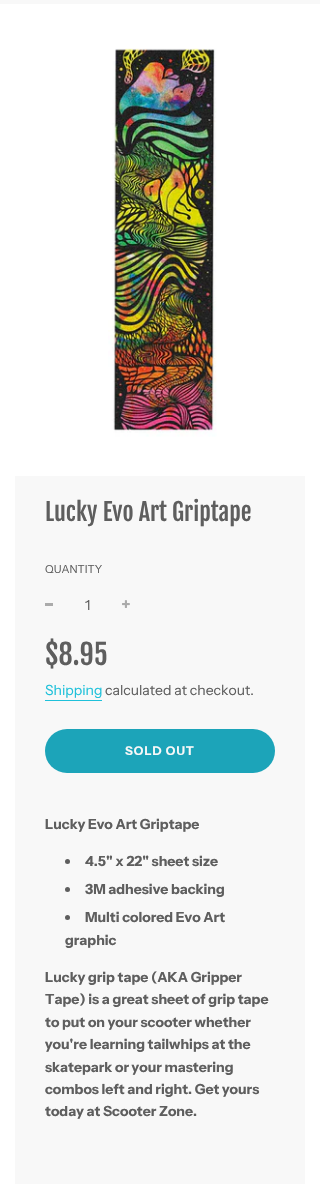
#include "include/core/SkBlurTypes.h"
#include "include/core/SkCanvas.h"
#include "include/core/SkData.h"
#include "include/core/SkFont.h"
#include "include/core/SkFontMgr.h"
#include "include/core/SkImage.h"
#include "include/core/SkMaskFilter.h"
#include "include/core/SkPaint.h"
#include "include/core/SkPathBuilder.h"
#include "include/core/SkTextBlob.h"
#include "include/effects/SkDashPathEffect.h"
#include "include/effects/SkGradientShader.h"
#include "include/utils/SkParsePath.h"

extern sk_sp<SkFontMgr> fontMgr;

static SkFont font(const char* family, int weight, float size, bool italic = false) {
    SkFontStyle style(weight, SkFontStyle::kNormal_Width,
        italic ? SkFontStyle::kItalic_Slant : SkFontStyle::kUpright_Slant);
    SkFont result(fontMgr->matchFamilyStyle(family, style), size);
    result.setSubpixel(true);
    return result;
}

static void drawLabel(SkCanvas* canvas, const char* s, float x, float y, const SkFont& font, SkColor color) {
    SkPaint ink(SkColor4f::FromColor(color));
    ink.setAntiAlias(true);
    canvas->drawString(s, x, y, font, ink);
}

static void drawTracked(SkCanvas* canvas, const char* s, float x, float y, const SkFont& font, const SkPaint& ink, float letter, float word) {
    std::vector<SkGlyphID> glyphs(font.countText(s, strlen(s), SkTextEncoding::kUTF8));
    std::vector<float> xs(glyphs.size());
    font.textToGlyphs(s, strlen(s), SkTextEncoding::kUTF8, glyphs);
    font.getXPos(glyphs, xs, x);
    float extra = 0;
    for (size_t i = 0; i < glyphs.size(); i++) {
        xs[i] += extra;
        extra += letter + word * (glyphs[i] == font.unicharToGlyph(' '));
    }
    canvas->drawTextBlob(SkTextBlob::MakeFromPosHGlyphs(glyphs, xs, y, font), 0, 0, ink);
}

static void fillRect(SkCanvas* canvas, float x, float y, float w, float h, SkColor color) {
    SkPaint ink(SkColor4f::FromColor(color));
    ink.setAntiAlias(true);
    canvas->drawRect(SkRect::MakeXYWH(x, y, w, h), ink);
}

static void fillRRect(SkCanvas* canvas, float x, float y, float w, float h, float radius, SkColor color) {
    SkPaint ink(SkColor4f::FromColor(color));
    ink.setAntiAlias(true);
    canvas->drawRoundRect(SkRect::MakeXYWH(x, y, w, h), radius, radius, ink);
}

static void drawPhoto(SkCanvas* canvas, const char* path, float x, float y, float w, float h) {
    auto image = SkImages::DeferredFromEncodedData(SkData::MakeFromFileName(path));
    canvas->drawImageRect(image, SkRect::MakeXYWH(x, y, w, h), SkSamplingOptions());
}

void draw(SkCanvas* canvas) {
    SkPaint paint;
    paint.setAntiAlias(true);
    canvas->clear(0xFFFFFFFF);
    fillRect(canvas, 0, 0, 320, 4, 0xFFF8F8F8);
    drawPhoto(canvas, "assets/img1.png", 108, 48, 109, 389);
    fillRect(canvas, 15, 476, 290, 708, 0xFFF8F8F8);
    SkFont font1 = font("Fjalla One", 400, 24);
    drawLabel(canvas, "Lucky Evo Art Griptape", 45, 521, font1, 0xFF5E5E5E);
    SkFont font2 = font("Instrument Sans", 400, 11);
    drawLabel(canvas, "QUANTITY", 45, 573, font2, 0xFF5E5E5E);
    fillRect(canvas, 45, 603, 8, 3, 0xFFABABAB);
    SkFont font3 = font("Instrument Sans", 400, 14);
    drawLabel(canvas, "1", 85, 610, font3, 0xFF5E5E5E);
    drawPhoto(canvas, "assets/img2.png", 122, 600, 8, 8);
    SkFont font4 = font("Fjalla One", 400, 28);
    drawLabel(canvas, "$8.95", 45, 665, font4, 0xFF5E5E5E);
    drawLabel(canvas, "Shipping", 45, 695, font3, 0xFF1FC1DA);
    fillRect(canvas, 45, 700, 57, 1, 0xFF1FC1DA);
    drawLabel(canvas, "calculated at checkout.", 105, 695, font3, 0xFF5E5E5E);
    fillRRect(canvas, 45, 729, 230, 44, 22, 0xFF1CA4B9);
    SkFont font5 = font("Instrument Sans", 700, 12);
    paint.setColor(0xFFF8F8F8);
    drawTracked(canvas, "SOLD OUT", 125, 755, font5, paint, 1, 0);
    SkFont font6 = font("Instrument Sans", 700, 14);
    drawLabel(canvas, "Lucky Evo Art Griptape", 45, 829, font6, 0xFF5E5E5E);
    paint.setColor(0xFF5E5E5E);
    canvas->drawCircle(67.5f, 861.5f, 2.5f, paint);
    drawLabel(canvas, "4.5\" x 22\" sheet size", 85, 866, font6, 0xFF5E5E5E);
    canvas->drawCircle(67.5f, 889.5f, 2.5f, paint);
    drawLabel(canvas, "3M adhesive backing", 85, 894, font6, 0xFF5E5E5E);
    canvas->drawCircle(67.5f, 917.5f, 2.5f, paint);
    drawLabel(canvas, "Multi colored Evo Art", 85, 922, font6, 0xFF5E5E5E);
    drawLabel(canvas, "graphic", 65, 945, font6, 0xFF5E5E5E);
    drawLabel(canvas, "Lucky grip tape (AKA Gripper", 45, 982, font6, 0xFF5E5E5E);
    drawLabel(canvas, "Tape) is a great sheet of grip tape", 45, 1004, font6, 0xFF5E5E5E);
    drawLabel(canvas, "to put on your scooter whether", 45, 1027, font6, 0xFF5E5E5E);
    drawLabel(canvas, "you're learning tailwhips at the", 45, 1049, font6, 0xFF5E5E5E);
    drawLabel(canvas, "skatepark or your mastering", 45, 1072, font6, 0xFF5E5E5E);
    drawLabel(canvas, "combos left and right. Get yours", 45, 1094, font6, 0xFF5E5E5E);
    drawLabel(canvas, "today at Scooter Zone.", 45, 1116, font6, 0xFF5E5E5E);
}
